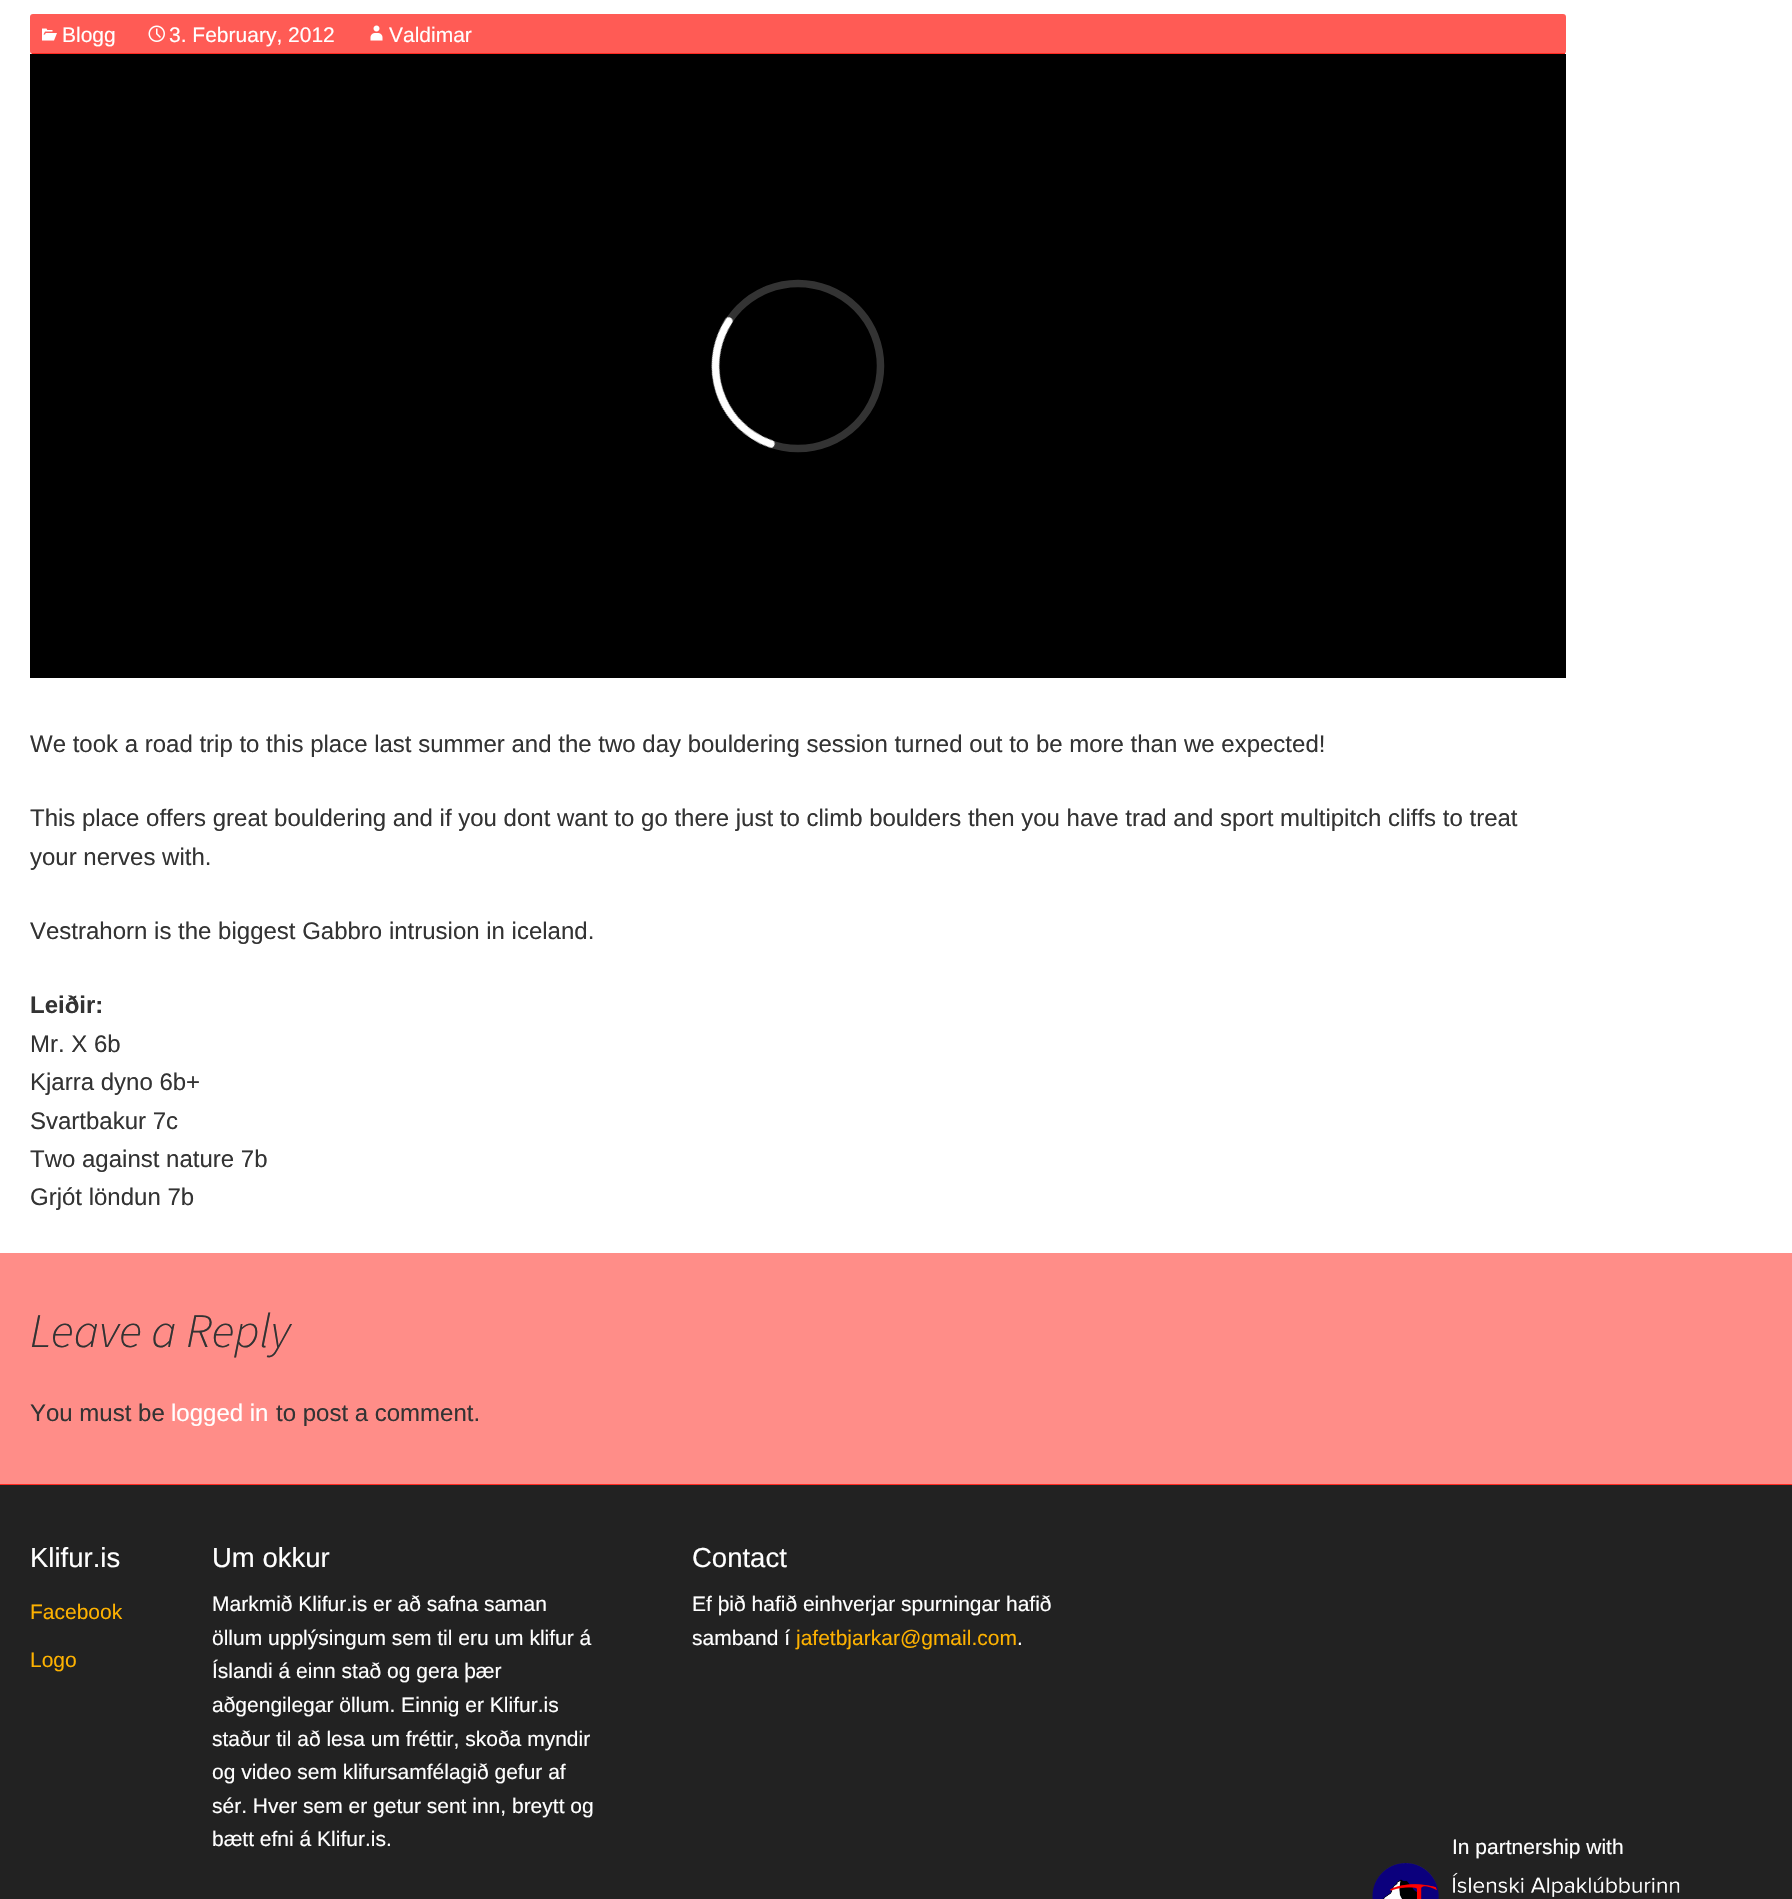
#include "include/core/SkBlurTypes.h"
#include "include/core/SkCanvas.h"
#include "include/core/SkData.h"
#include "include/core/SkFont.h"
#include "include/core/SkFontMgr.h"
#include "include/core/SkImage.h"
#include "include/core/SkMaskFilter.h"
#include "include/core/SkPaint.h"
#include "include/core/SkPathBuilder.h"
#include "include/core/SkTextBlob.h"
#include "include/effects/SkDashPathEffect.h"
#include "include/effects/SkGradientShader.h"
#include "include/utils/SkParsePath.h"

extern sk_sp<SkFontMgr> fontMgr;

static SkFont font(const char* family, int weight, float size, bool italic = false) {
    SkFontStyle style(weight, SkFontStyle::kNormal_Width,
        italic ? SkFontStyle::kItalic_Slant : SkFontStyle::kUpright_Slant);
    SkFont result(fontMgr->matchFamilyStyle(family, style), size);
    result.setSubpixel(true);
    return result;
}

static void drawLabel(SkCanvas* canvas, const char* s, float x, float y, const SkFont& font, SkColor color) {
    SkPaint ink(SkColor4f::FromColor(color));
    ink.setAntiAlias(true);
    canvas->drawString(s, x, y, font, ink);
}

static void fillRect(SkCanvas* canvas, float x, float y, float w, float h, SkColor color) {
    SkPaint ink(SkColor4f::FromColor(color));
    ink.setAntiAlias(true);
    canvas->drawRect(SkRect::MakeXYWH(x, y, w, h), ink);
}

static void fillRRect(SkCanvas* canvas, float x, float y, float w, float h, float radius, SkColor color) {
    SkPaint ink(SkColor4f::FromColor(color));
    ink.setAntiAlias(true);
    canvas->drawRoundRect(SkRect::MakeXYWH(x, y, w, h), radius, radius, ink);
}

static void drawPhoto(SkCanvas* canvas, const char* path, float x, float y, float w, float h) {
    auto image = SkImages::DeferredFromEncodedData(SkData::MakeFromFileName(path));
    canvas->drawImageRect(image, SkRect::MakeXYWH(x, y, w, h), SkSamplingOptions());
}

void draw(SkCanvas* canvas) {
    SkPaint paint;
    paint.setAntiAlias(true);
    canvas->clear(0xFFFFFFFF);
    fillRRect(canvas, 30, 14, 1536, 40, 3, 0xFFFF5B55);
    fillRect(canvas, 32, 53, 1533, 1, 0xFFFF2A22);
    drawPhoto(canvas, "assets/img1.png", 42, 28, 15, 13);
    SkFont font1 = font("Liberation Sans", 400, 21);
    drawLabel(canvas, "Blogg", 62, 42, font1, 0xFFFFFFFF);
    drawPhoto(canvas, "assets/img2.png", 148, 25, 17, 17);
    drawLabel(canvas, "3. February, 2012", 169, 42, font1, 0xFFFFFFFF);
    drawPhoto(canvas, "assets/img3.png", 370, 25, 13, 16);
    drawLabel(canvas, "Valdimar", 389, 42, font1, 0xFFFFFFFF);
    drawPhoto(canvas, "assets/img4.png", 30, 54, 1536, 624);
    SkFont font2 = font("Liberation Sans", 400, 24);
    drawLabel(canvas, "We took a road trip to this place last summer and the two day bouldering session turned out to be more than we expected!", 30, 752, font2, 0xFF333333);
    drawLabel(canvas, "This place offers great bouldering and if you dont want to go there just to climb boulders then you have trad and sport multipitch cliffs to treat", 30, 826, font2, 0xFF333333);
    drawLabel(canvas, "your nerves with.", 30, 865, font2, 0xFF333333);
    drawLabel(canvas, "Vestrahorn is the biggest Gabbro intrusion in iceland.", 30, 939, font2, 0xFF333333);
    SkFont font3 = font("Liberation Sans", 700, 24);
    drawLabel(canvas, "Leiðir:", 30, 1013, font3, 0xFF333333);
    drawLabel(canvas, "Mr. X 6b", 30, 1052, font2, 0xFF333333);
    drawLabel(canvas, "Kjarra dyno 6b+", 30, 1090, font2, 0xFF333333);
    drawLabel(canvas, "Svartbakur 7c", 30, 1129, font2, 0xFF333333);
    drawLabel(canvas, "Two against nature 7b", 30, 1167, font2, 0xFF333333);
    drawLabel(canvas, "Grjót löndun 7b", 30, 1205, font2, 0xFF333333);
    fillRect(canvas, 0, 1484, 1792, 1, 0xFFFF2A22);
    fillRect(canvas, 0, 1253, 1792, 231, 0xFFFF8D88);
    SkFont font4 = font("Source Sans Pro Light", 300, 48, true);
    drawLabel(canvas, "Leave a Reply", 30, 1347, font4, 0xFF333333);
    drawLabel(canvas, "You must be", 30, 1421, font2, 0xFF333333);
    drawLabel(canvas, "logged in", 171, 1421, font2, 0xFFFFFFFF);
    drawLabel(canvas, "to post a comment.", 276, 1421, font2, 0xFF333333);
    fillRect(canvas, 0, 1485, 1792, 414, 0xFF222222);
    SkFont font5 = font("Liberation Sans", 400, 27.5f);
    drawLabel(canvas, "Klifur.is", 30, 1567, font5, 0xFFFFFFFF);
    drawLabel(canvas, "Facebook", 30, 1619, font1, 0xFFFDB100);
    drawLabel(canvas, "Logo", 30, 1667, font1, 0xFFFDB100);
    drawLabel(canvas, "Um okkur", 212, 1567, font5, 0xFFFFFFFF);
    drawLabel(canvas, "Markmið Klifur.is er að safna saman", 212, 1611, font1, 0xFFFFFFFF);
    drawLabel(canvas, "öllum upplýsingum sem til eru um klifur á", 212, 1645, font1, 0xFFFFFFFF);
    drawLabel(canvas, "Íslandi á einn stað og gera þær", 212, 1678, font1, 0xFFFFFFFF);
    drawLabel(canvas, "aðgengilegar öllum. Einnig er Klifur.is", 212, 1712, font1, 0xFFFFFFFF);
    drawLabel(canvas, "staður til að lesa um fréttir, skoða myndir", 212, 1746, font1, 0xFFFFFFFF);
    drawLabel(canvas, "og video sem klifursamfélagið gefur af", 212, 1779, font1, 0xFFFFFFFF);
    drawLabel(canvas, "sér. Hver sem er getur sent inn, breytt og", 212, 1813, font1, 0xFFFFFFFF);
    drawLabel(canvas, "bætt efni á Klifur.is.", 212, 1846, font1, 0xFFFFFFFF);
    drawLabel(canvas, "Contact", 692, 1567, font5, 0xFFFFFFFF);
    drawLabel(canvas, "Ef þið hafið einhverjar spurningar hafið", 692, 1611, font1, 0xFFFFFFFF);
    drawLabel(canvas, "samband í", 692, 1645, font1, 0xFFFFFFFF);
    drawLabel(canvas, "jafetbjarkar@gmail.com", 796, 1645, font1, 0xFFFDB100);
    drawLabel(canvas, ".", 1017, 1645, font1, 0xFFFFFFFF);
    drawLabel(canvas, "In partnership with", 1452, 1854, font1, 0xFFFFFFFF);
    drawPhoto(canvas, "assets/img5.png", 1372, 1863, 308, 36);
}
